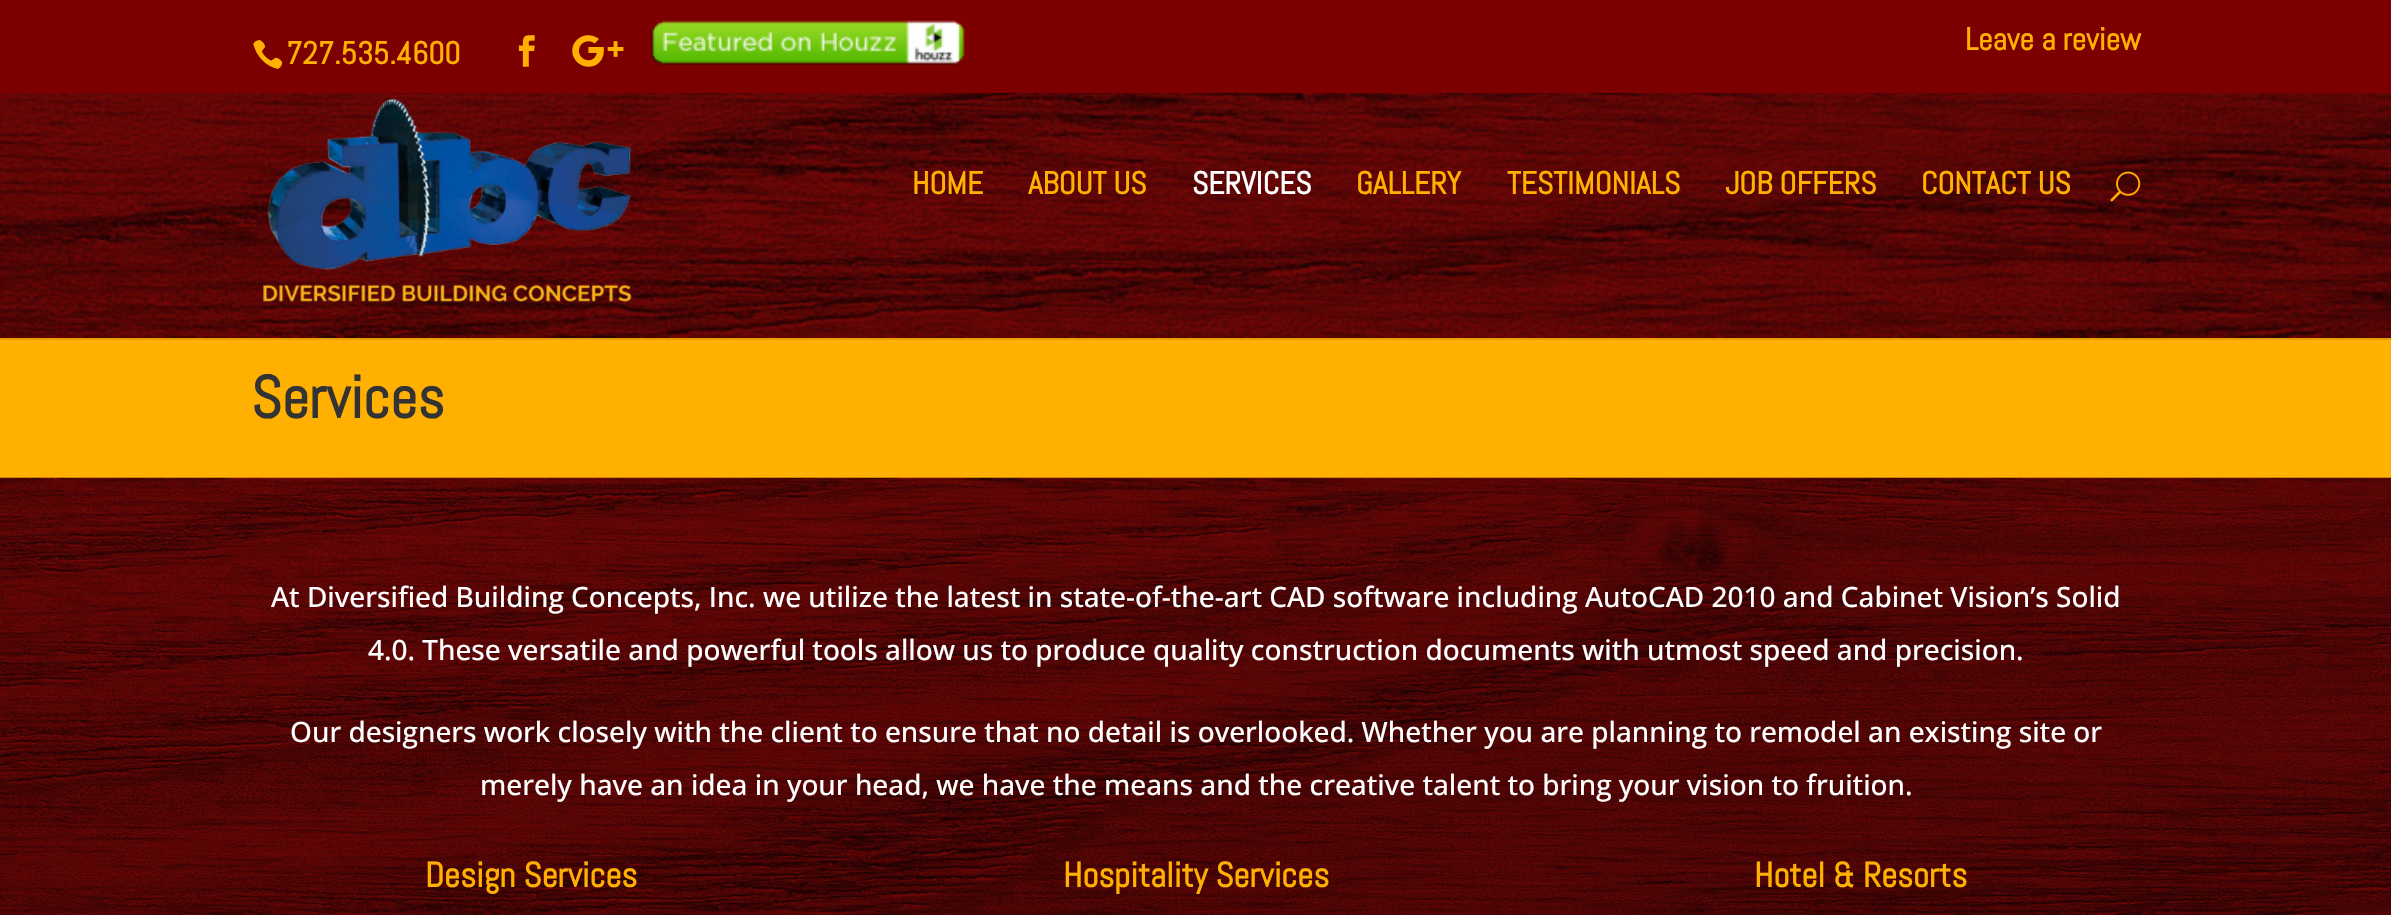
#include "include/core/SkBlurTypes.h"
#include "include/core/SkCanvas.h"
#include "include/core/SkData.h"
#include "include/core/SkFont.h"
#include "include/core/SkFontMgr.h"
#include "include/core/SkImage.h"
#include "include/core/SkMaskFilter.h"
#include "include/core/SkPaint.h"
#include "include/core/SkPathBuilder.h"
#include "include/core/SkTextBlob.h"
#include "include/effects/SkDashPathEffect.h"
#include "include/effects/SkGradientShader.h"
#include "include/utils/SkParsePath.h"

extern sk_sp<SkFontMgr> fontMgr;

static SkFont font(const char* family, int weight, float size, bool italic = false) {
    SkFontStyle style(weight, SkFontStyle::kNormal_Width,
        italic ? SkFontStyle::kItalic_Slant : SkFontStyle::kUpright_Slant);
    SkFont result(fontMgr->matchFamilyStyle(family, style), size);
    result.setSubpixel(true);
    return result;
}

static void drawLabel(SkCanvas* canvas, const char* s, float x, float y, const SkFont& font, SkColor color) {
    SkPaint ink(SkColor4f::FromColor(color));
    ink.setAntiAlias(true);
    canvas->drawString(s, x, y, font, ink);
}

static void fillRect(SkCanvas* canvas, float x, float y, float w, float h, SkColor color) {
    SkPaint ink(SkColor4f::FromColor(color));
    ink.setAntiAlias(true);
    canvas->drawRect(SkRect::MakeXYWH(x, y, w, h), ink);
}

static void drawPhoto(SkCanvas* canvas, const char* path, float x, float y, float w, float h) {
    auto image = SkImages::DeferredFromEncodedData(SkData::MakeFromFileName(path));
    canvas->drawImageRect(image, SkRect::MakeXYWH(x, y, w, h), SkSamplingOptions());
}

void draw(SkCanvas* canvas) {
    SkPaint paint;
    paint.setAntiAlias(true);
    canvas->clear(0xFFFFB000);
    fillRect(canvas, 0, 0, 2391, 93, 0xFF7C0000);
    drawPhoto(canvas, "assets/img1.png", 253, 40, 30, 29);
    SkFont font1 = font("Abel", 700, 31.5f);
    drawLabel(canvas, "727.535.4600", 286, 64, font1, 0xFFFFB000);
    drawPhoto(canvas, "assets/img2.png", 518, 35, 17, 32);
    drawPhoto(canvas, "assets/img3.png", 572, 35, 52, 32);
    drawPhoto(canvas, "assets/img4.png", 650, 20, 315, 45);
    drawLabel(canvas, "Leave a review", 1965, 50, font1, 0xFFFFB000);
    fillRect(canvas, 0, 338, 2391, 2, 0xFFE69E00);
    drawPhoto(canvas, "assets/img5.png", 0, 93, 2391, 245);
    drawPhoto(canvas, "assets/img6.png", 263, 98, 369, 205);
    drawLabel(canvas, "HOME", 912, 194, font1, 0xFFFFB000);
    drawLabel(canvas, "ABOUT US", 1028, 194, font1, 0xFFFFB000);
    drawLabel(canvas, "SERVICES", 1192, 194, font1, 0xFFFFFFFF);
    drawLabel(canvas, "GALLERY", 1356, 194, font1, 0xFFFFB000);
    drawLabel(canvas, "TESTIMONIALS", 1507, 194, font1, 0xFFFFB000);
    drawLabel(canvas, "JOB OFFERS", 1725, 194, font1, 0xFFFFB000);
    drawLabel(canvas, "CONTACT US", 1921, 194, font1, 0xFFFFB000);
    drawPhoto(canvas, "assets/img7.png", 2110, 171, 31, 31);
    SkFont font2 = font("Abel", 700, 59.5f);
    drawLabel(canvas, "Services", 251, 418, font2, 0xFF333333);
    drawPhoto(canvas, "assets/img8.png", 0, 477, 2391, 438);
    SkFont font3 = font("Open Sans", 500, 28);
    drawLabel(canvas, "At Diversified Building Concepts, Inc. we utilize the latest in state-of-the-art CAD software including AutoCAD 2010 and Cabinet Vision’s Solid", 271, 607, font3, 0xFFFFFFFF);
    drawLabel(canvas, "4.0. These versatile and powerful tools allow us to produce quality construction documents with utmost speed and precision.", 368, 660, font3, 0xFFFFFFFF);
    drawLabel(canvas, "Our designers work closely with the client to ensure that no detail is overlooked. Whether you are planning to remodel an existing site or", 290, 742, font3, 0xFFFFFFFF);
    drawLabel(canvas, "merely have an idea in your head, we have the means and the creative talent to bring your vision to fruition.", 480, 795, font3, 0xFFFFFFFF);
    SkFont font4 = font("Abel", 700, 35);
    drawLabel(canvas, "Design Services", 425, 887, font4, 0xFFFFB000);
    drawLabel(canvas, "Hospitality Services", 1063, 887, font4, 0xFFFFB000);
    drawLabel(canvas, "Hotel & Resorts", 1754, 887, font4, 0xFFFFB000);
}
